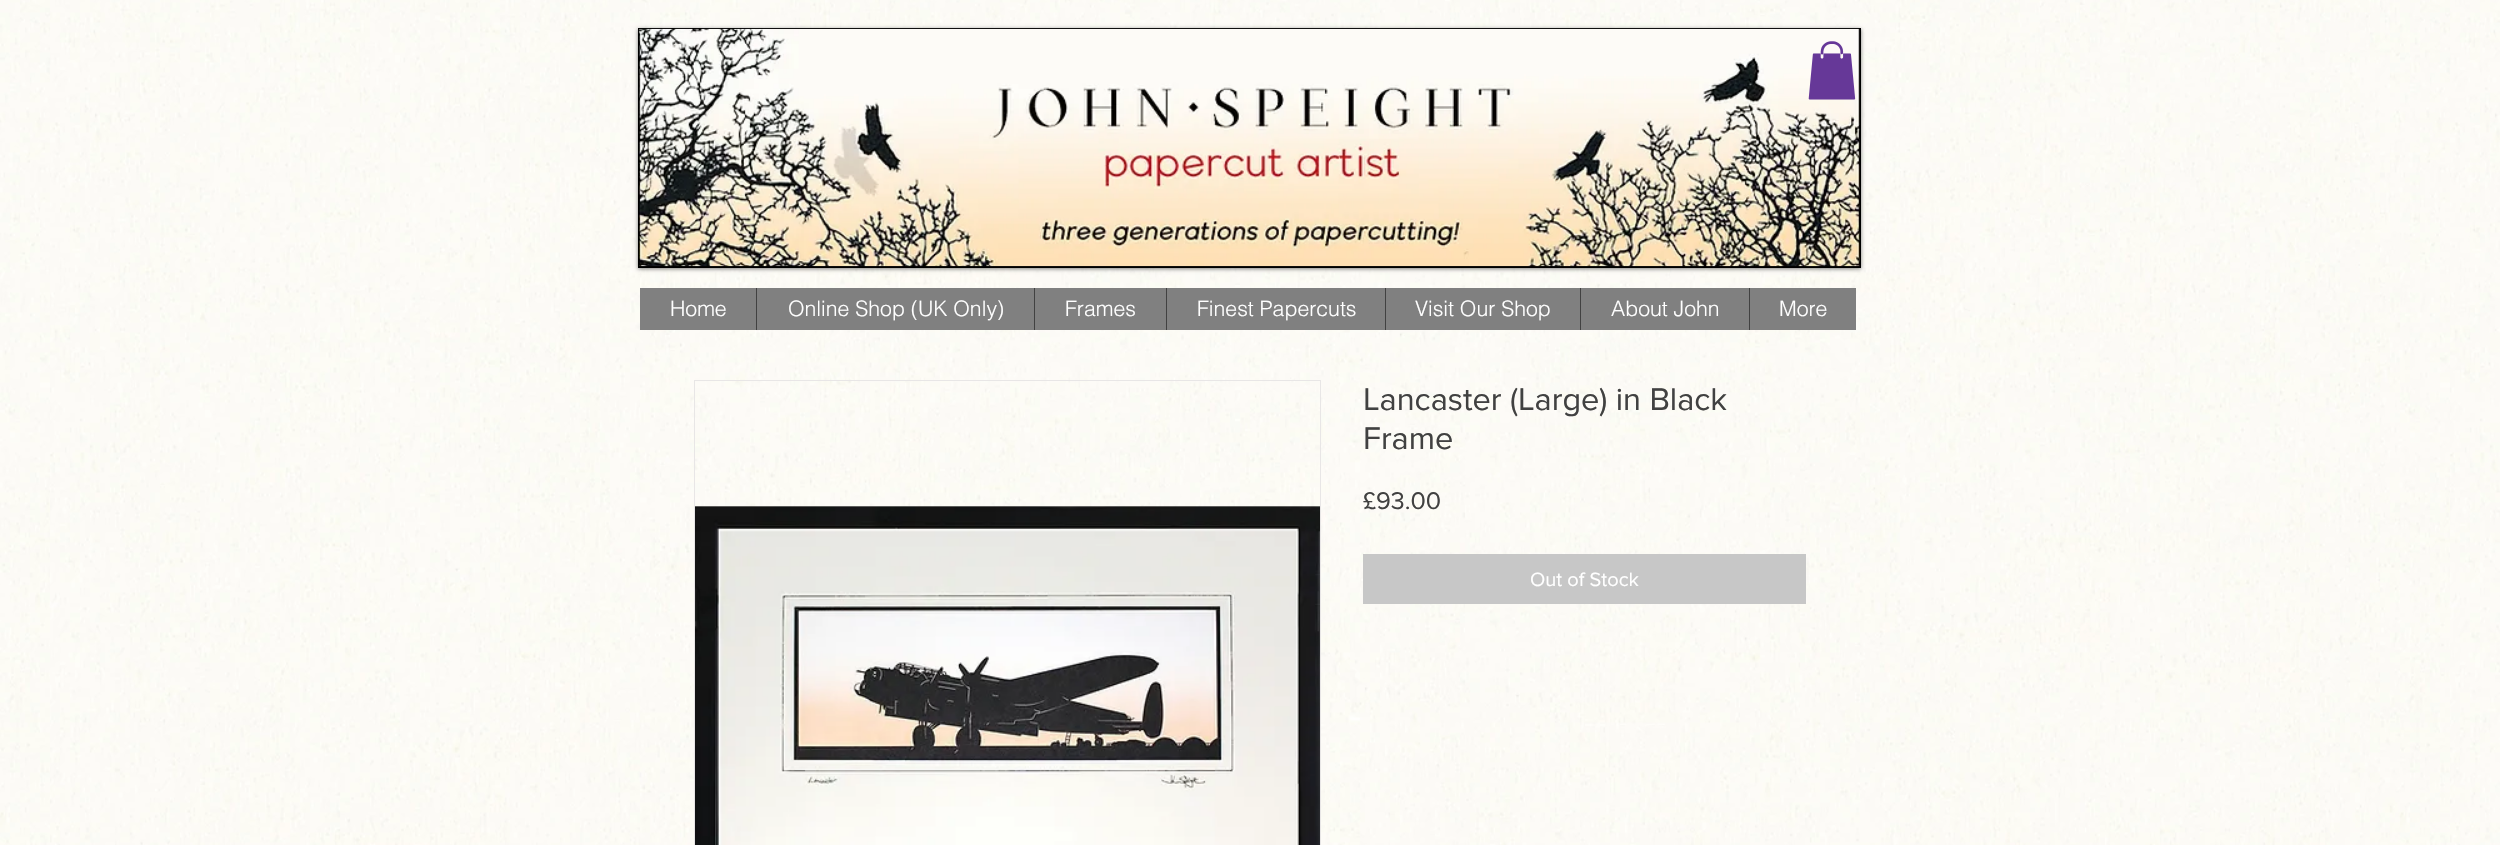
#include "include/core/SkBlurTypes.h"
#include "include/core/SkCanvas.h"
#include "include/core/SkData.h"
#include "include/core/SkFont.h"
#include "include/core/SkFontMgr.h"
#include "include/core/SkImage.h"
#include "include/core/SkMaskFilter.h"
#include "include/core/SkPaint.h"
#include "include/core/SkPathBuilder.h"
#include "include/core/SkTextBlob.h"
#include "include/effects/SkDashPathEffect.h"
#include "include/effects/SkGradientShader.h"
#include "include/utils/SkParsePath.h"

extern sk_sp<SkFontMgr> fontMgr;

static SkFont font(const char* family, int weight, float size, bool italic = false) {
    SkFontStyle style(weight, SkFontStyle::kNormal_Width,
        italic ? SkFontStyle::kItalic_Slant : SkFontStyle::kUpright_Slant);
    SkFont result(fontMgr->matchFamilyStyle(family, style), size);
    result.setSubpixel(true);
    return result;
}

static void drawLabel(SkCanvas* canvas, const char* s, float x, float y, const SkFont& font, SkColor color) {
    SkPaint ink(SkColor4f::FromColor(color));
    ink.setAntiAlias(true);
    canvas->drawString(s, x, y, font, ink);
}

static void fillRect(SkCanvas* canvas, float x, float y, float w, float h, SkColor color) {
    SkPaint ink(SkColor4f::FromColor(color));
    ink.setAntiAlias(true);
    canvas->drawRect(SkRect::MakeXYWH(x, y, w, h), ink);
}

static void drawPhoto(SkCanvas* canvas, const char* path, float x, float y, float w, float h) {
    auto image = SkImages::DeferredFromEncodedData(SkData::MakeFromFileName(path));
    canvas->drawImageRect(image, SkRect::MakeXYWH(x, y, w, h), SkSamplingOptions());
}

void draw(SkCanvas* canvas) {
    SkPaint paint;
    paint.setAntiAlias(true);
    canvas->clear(0xFFFFFFFF);
    drawPhoto(canvas, "assets/img1.png", 0, 0, 2500, 845);
    paint.setColor(0x80000000);
    paint.setMaskFilter(SkMaskFilter::MakeBlur(kNormal_SkBlurStyle, 2));
    canvas->drawRect(SkRect::MakeXYWH(638, 29, 1223, 240), paint);
    paint.setMaskFilter(nullptr);
    fillRect(canvas, 638, 28, 1223, 240, 0xFF000000);
    drawPhoto(canvas, "assets/img2.png", 638, 28, 1222, 239);
    drawPhoto(canvas, "assets/img3.png", 1808, 41, 48, 59);
    fillRect(canvas, 640, 288, 1216, 42, 0xFF808080);
    SkFont font1 = font("helvetica", 300, 21.25f);
    drawLabel(canvas, "Home", 670, 316, font1, 0xFFFFFFFF);
    fillRect(canvas, 756, 288, 1, 42, 0xFF414141);
    drawLabel(canvas, "Online Shop (UK Only)", 788, 316, font1, 0xFFFFFFFF);
    fillRect(canvas, 1034, 288, 1, 42, 0xFF414141);
    drawLabel(canvas, "Frames", 1065, 316, font1, 0xFFFFFFFF);
    fillRect(canvas, 1166, 288, 1, 42, 0xFF414141);
    drawLabel(canvas, "Finest Papercuts", 1197, 316, font1, 0xFFFFFFFF);
    fillRect(canvas, 1385, 288, 1, 42, 0xFF414141);
    drawLabel(canvas, "Visit Our Shop", 1415, 316, font1, 0xFFFFFFFF);
    fillRect(canvas, 1580, 288, 1, 42, 0xFF414141);
    drawLabel(canvas, "About John", 1611, 316, font1, 0xFFFFFFFF);
    fillRect(canvas, 1749, 288, 1, 42, 0xFF414141);
    drawLabel(canvas, "More", 1779, 316, font1, 0xFFFFFFFF);
    paint.setStroke(true);
    paint.setStrokeWidth(1);
    paint.setColor(0xFFE8E6E6);
    canvas->drawRect(SkRect::MakeXYWH(694.5f, 380.5f, 626, 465), paint);
    drawPhoto(canvas, "assets/img4.png", 695, 506, 625, 339);
    SkFont font2 = font("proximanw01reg", 400, 32.5f);
    drawLabel(canvas, "Lancaster (Large) in Black", 1363, 410, font2, 0xFF414141);
    drawLabel(canvas, "Frame", 1363, 449, font2, 0xFF414141);
    SkFont font3 = font("proximanw01reg", 400, 25);
    drawLabel(canvas, "£93.00", 1363, 509, font3, 0xFF414141);
    fillRect(canvas, 1363, 554, 443, 50, 0xFFC7C7C7);
    SkFont font4 = font("proximanw01reg", 400, 20);
    drawLabel(canvas, "Out of Stock", 1530, 586, font4, 0xFFFFFFFF);
}
